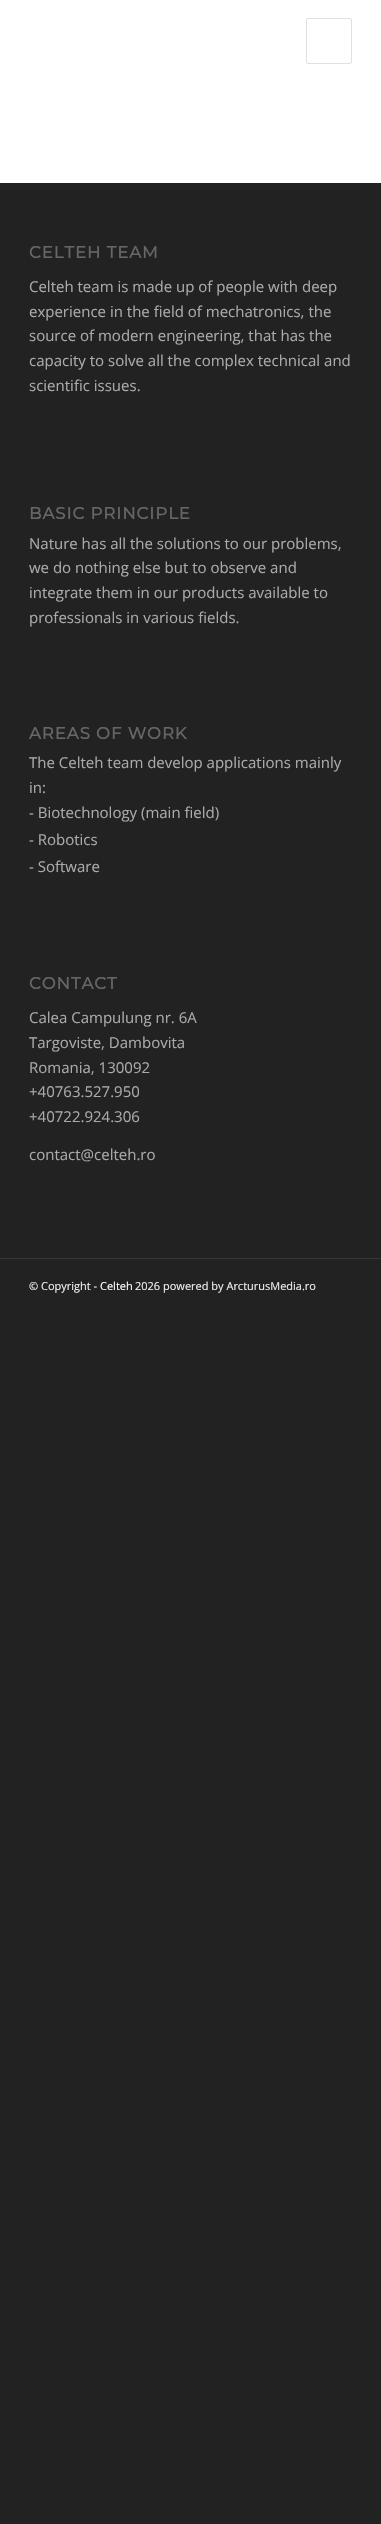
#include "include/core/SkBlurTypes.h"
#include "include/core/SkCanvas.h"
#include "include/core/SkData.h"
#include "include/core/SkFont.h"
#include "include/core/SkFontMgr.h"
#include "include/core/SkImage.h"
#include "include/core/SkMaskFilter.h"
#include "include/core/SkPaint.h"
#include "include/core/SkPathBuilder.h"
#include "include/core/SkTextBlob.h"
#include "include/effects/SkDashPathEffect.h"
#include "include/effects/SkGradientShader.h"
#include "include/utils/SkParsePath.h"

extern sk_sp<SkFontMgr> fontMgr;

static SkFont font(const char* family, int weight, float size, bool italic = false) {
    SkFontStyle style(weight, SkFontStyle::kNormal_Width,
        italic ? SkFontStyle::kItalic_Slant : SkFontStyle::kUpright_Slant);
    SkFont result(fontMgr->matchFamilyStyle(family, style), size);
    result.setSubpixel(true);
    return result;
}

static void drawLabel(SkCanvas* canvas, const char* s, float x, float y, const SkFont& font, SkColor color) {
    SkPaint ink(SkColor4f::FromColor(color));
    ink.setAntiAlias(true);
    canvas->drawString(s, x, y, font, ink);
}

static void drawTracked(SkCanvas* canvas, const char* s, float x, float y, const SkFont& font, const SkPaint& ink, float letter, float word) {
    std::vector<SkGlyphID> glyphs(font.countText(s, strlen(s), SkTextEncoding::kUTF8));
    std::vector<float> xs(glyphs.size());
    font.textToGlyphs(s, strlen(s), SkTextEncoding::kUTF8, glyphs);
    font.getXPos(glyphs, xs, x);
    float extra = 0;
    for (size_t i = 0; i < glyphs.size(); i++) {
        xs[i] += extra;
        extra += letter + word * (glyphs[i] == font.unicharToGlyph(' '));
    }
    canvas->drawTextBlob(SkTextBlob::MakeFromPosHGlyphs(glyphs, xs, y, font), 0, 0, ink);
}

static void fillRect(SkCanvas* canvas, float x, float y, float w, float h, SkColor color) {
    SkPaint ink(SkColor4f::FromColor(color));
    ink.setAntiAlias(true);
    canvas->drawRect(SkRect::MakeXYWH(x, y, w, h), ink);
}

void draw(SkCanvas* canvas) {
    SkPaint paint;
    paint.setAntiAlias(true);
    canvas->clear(0xFF222222);
    fillRect(canvas, 0, 0, 381, 183, 0xFFFFFFFF);
    paint.setStroke(true);
    paint.setStrokeWidth(1);
    paint.setColor(0xFFE1E1E1);
    canvas->drawRoundRect(SkRect::MakeXYWH(306.5f, 18.5f, 45, 45), 1.5f, 1.5f, paint);
    SkFont font1 = font("Montserrat", 700, 16.5f);
    paint.setStroke(false);
    paint.setColor(0xFF666666);
    drawTracked(canvas, "CELTEH TEAM", 29, 258, font1, paint, 1, 0);
    SkFont font2 = font("Open Sans", 400, 15);
    drawLabel(canvas, "Celteh team is made up of people with deep", 29, 292, font2, 0xFFAAAAAA);
    drawLabel(canvas, "experience in the field of mechatronics, the", 29, 317, font2, 0xFFAAAAAA);
    drawLabel(canvas, "source of modern engineering, that has the", 29, 341, font2, 0xFFAAAAAA);
    drawLabel(canvas, "capacity to solve all the complex technical and", 29, 366, font2, 0xFFAAAAAA);
    drawLabel(canvas, "scientific issues.", 29, 391, font2, 0xFFAAAAAA);
    drawTracked(canvas, "BASIC PRINCIPLE", 29, 519, font1, paint, 1, 0);
    drawLabel(canvas, "Nature has all the solutions to our problems,", 29, 549, font2, 0xFFAAAAAA);
    drawLabel(canvas, "we do nothing else but to observe and", 29, 573, font2, 0xFFAAAAAA);
    drawLabel(canvas, "integrate them in our products available to", 29, 598, font2, 0xFFAAAAAA);
    drawLabel(canvas, "professionals in various fields.", 29, 623, font2, 0xFFAAAAAA);
    drawTracked(canvas, "AREAS OF WORK", 29, 739, font1, paint, 1, 0);
    drawLabel(canvas, "The Celteh team develop applications mainly", 29, 768, font2, 0xFFAAAAAA);
    drawLabel(canvas, "in:", 29, 793, font2, 0xFFAAAAAA);
    drawLabel(canvas, "- Biotechnology (main field)", 29, 818, font2, 0xFFAAAAAA);
    drawLabel(canvas, "- Robotics", 29, 845, font2, 0xFFAAAAAA);
    drawLabel(canvas, "- Software", 29, 872, font2, 0xFFAAAAAA);
    drawTracked(canvas, "CONTACT", 29, 989, font1, paint, 1, 0);
    drawLabel(canvas, "Calea Campulung nr. 6A", 29, 1023, font2, 0xFFAAAAAA);
    drawLabel(canvas, "Targoviste, Dambovita", 29, 1048, font2, 0xFFAAAAAA);
    drawLabel(canvas, "Romania, 130092", 29, 1073, font2, 0xFFAAAAAA);
    drawLabel(canvas, "+40763.527.950", 29, 1097, font2, 0xFFAAAAAA);
    drawLabel(canvas, "+40722.924.306", 29, 1122, font2, 0xFFAAAAAA);
    drawLabel(canvas, "contact@celteh.ro", 29, 1160, font2, 0xFFAAAAAA);
    fillRect(canvas, 0, 1258, 381, 1, 0xFF373737);
    SkFont font3 = font("Open Sans", 400, 11);
    drawLabel(canvas, "© Copyright -", 29, 1290, font3, 0xFFEEEEEE);
    drawLabel(canvas, "Celteh", 100, 1290, font3, 0xFFFFFFFF);
    drawLabel(canvas, "2026 powered by ArcturusMedia.ro", 135, 1290, font3, 0xFFEEEEEE);
}
